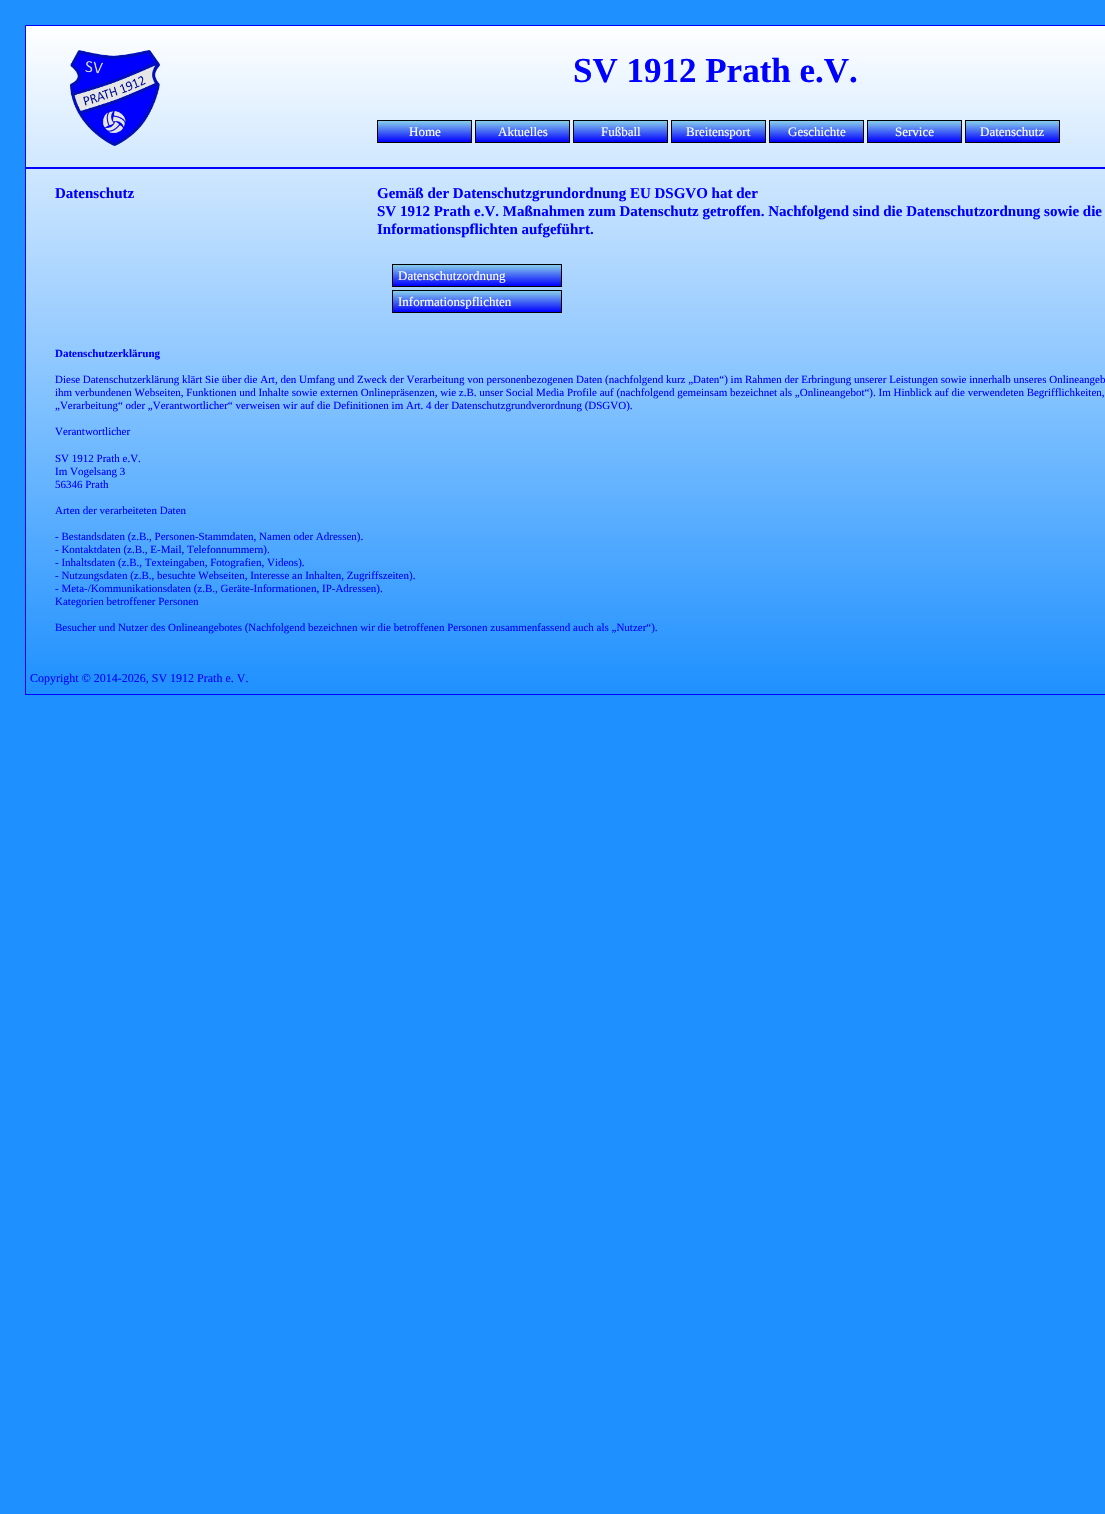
#include "include/core/SkBlurTypes.h"
#include "include/core/SkCanvas.h"
#include "include/core/SkData.h"
#include "include/core/SkFont.h"
#include "include/core/SkFontMgr.h"
#include "include/core/SkImage.h"
#include "include/core/SkMaskFilter.h"
#include "include/core/SkPaint.h"
#include "include/core/SkPathBuilder.h"
#include "include/core/SkTextBlob.h"
#include "include/effects/SkDashPathEffect.h"
#include "include/effects/SkGradientShader.h"
#include "include/utils/SkParsePath.h"

extern sk_sp<SkFontMgr> fontMgr;

static SkFont font(const char* family, int weight, float size, bool italic = false) {
    SkFontStyle style(weight, SkFontStyle::kNormal_Width,
        italic ? SkFontStyle::kItalic_Slant : SkFontStyle::kUpright_Slant);
    SkFont result(fontMgr->matchFamilyStyle(family, style), size);
    result.setSubpixel(true);
    return result;
}

static void drawLabel(SkCanvas* canvas, const char* s, float x, float y, const SkFont& font, SkColor color) {
    SkPaint ink(SkColor4f::FromColor(color));
    ink.setAntiAlias(true);
    canvas->drawString(s, x, y, font, ink);
}

static void fillRect(SkCanvas* canvas, float x, float y, float w, float h, SkColor color) {
    SkPaint ink(SkColor4f::FromColor(color));
    ink.setAntiAlias(true);
    canvas->drawRect(SkRect::MakeXYWH(x, y, w, h), ink);
}

static void drawPhoto(SkCanvas* canvas, const char* path, float x, float y, float w, float h) {
    auto image = SkImages::DeferredFromEncodedData(SkData::MakeFromFileName(path));
    canvas->drawImageRect(image, SkRect::MakeXYWH(x, y, w, h), SkSamplingOptions());
}

void draw(SkCanvas* canvas) {
    SkPaint paint;
    paint.setAntiAlias(true);
    canvas->clear(0xFF1E90FF);
    drawPhoto(canvas, "assets/img1.png", 25, 25, 1080, 670);
    drawPhoto(canvas, "assets/img2.png", 70, 50, 90, 96);
    SkFont font1 = font("Liberation Serif", 700, 35);
    drawLabel(canvas, "SV 1912 Prath e.V.", 573, 82, font1, 0xFF0000FF);
    {
        const SkColor colors[] = {0xFF0000FF, 0xFF87CEEB};
        const float stops[] = {0, 1};
        const SkPoint ends[] = {{425, 142}, {425, 121}};
        paint.setShader(SkGradientShader::MakeLinear(ends, colors, stops, 2, SkTileMode::kClamp));
        paint.setAlpha(255);
    }
    canvas->drawRect(SkRect::MakeXYWH(378, 121, 93, 21), paint);
    paint.setStroke(true);
    paint.setStrokeWidth(1);
    paint.setShader(nullptr);
    paint.setColor(0xFF000000);
    canvas->drawRect(SkRect::MakeXYWH(377.5f, 120.5f, 94, 22), paint);
    SkFont font2 = font("Liberation Serif", 400, 13);
    drawLabel(canvas, "Home", 409, 136, font2, 0xFFFFFFFF);
    paint.setStroke(false);
    {
        const SkColor colors[] = {0xFF0000FF, 0xFF87CEEB};
        const float stops[] = {0, 1};
        const SkPoint ends[] = {{523, 142}, {523, 121}};
        paint.setShader(SkGradientShader::MakeLinear(ends, colors, stops, 2, SkTileMode::kClamp));
        paint.setAlpha(255);
    }
    canvas->drawRect(SkRect::MakeXYWH(476, 121, 93, 21), paint);
    paint.setStroke(true);
    paint.setShader(nullptr);
    paint.setColor(0xFF000000);
    canvas->drawRect(SkRect::MakeXYWH(475.5f, 120.5f, 94, 22), paint);
    drawLabel(canvas, "Aktuelles", 498, 136, font2, 0xFFFFFFFF);
    paint.setStroke(false);
    {
        const SkColor colors[] = {0xFF0000FF, 0xFF87CEEB};
        const float stops[] = {0, 1};
        const SkPoint ends[] = {{621, 142}, {621, 121}};
        paint.setShader(SkGradientShader::MakeLinear(ends, colors, stops, 2, SkTileMode::kClamp));
        paint.setAlpha(255);
    }
    canvas->drawRect(SkRect::MakeXYWH(574, 121, 93, 21), paint);
    paint.setStroke(true);
    paint.setShader(nullptr);
    paint.setColor(0xFF000000);
    canvas->drawRect(SkRect::MakeXYWH(573.5f, 120.5f, 94, 22), paint);
    drawLabel(canvas, "Fußball", 601, 136, font2, 0xFFFFFFFF);
    paint.setStroke(false);
    {
        const SkColor colors[] = {0xFF0000FF, 0xFF87CEEB};
        const float stops[] = {0, 1};
        const SkPoint ends[] = {{719, 142}, {719, 121}};
        paint.setShader(SkGradientShader::MakeLinear(ends, colors, stops, 2, SkTileMode::kClamp));
        paint.setAlpha(255);
    }
    canvas->drawRect(SkRect::MakeXYWH(672, 121, 93, 21), paint);
    paint.setStroke(true);
    paint.setShader(nullptr);
    paint.setColor(0xFF000000);
    canvas->drawRect(SkRect::MakeXYWH(671.5f, 120.5f, 94, 22), paint);
    drawLabel(canvas, "Breitensport", 686, 136, font2, 0xFFFFFFFF);
    paint.setStroke(false);
    {
        const SkColor colors[] = {0xFF0000FF, 0xFF87CEEB};
        const float stops[] = {0, 1};
        const SkPoint ends[] = {{817, 142}, {817, 121}};
        paint.setShader(SkGradientShader::MakeLinear(ends, colors, stops, 2, SkTileMode::kClamp));
        paint.setAlpha(255);
    }
    canvas->drawRect(SkRect::MakeXYWH(770, 121, 93, 21), paint);
    paint.setStroke(true);
    paint.setShader(nullptr);
    paint.setColor(0xFF000000);
    canvas->drawRect(SkRect::MakeXYWH(769.5f, 120.5f, 94, 22), paint);
    drawLabel(canvas, "Geschichte", 788, 136, font2, 0xFFFFFFFF);
    paint.setStroke(false);
    {
        const SkColor colors[] = {0xFF0000FF, 0xFF87CEEB};
        const float stops[] = {0, 1};
        const SkPoint ends[] = {{915, 142}, {915, 121}};
        paint.setShader(SkGradientShader::MakeLinear(ends, colors, stops, 2, SkTileMode::kClamp));
        paint.setAlpha(255);
    }
    canvas->drawRect(SkRect::MakeXYWH(868, 121, 93, 21), paint);
    paint.setStroke(true);
    paint.setShader(nullptr);
    paint.setColor(0xFF000000);
    canvas->drawRect(SkRect::MakeXYWH(867.5f, 120.5f, 94, 22), paint);
    drawLabel(canvas, "Service", 895, 136, font2, 0xFFFFFFFF);
    paint.setStroke(false);
    {
        const SkColor colors[] = {0xFF0000FF, 0xFF87CEEB};
        const float stops[] = {0, 1};
        const SkPoint ends[] = {{1013, 142}, {1013, 121}};
        paint.setShader(SkGradientShader::MakeLinear(ends, colors, stops, 2, SkTileMode::kClamp));
        paint.setAlpha(255);
    }
    canvas->drawRect(SkRect::MakeXYWH(966, 121, 93, 21), paint);
    paint.setStroke(true);
    paint.setShader(nullptr);
    paint.setColor(0xFF000000);
    canvas->drawRect(SkRect::MakeXYWH(965.5f, 120.5f, 94, 22), paint);
    drawLabel(canvas, "Datenschutz", 980, 136, font2, 0xFFFFFFFF);
    fillRect(canvas, 25, 167, 1080, 2, 0xFF0000FF);
    SkFont font3 = font("Liberation Serif", 700, 15);
    drawLabel(canvas, "Datenschutz", 55, 198, font3, 0xFF0000FF);
    drawLabel(canvas, "Gemäß der Datenschutzgrundordnung EU DSGVO hat der", 377, 198, font3, 0xFF0000FF);
    drawLabel(canvas, "SV 1912 Prath e.V. Maßnahmen zum Datenschutz getroffen. Nachfolgend sind die Datenschutzordnung sowie die", 377, 216, font3, 0xFF0000FF);
    drawLabel(canvas, "Informationspflichten aufgeführt.", 377, 234, font3, 0xFF0000FF);
    paint.setStroke(false);
    {
        const SkColor colors[] = {0xFF0000FF, 0xFF87CEEB};
        const float stops[] = {0, 1};
        const SkPoint ends[] = {{477, 286}, {477, 265}};
        paint.setShader(SkGradientShader::MakeLinear(ends, colors, stops, 2, SkTileMode::kClamp));
        paint.setAlpha(255);
    }
    canvas->drawRect(SkRect::MakeXYWH(393, 265, 168, 21), paint);
    paint.setStroke(true);
    paint.setShader(nullptr);
    paint.setColor(0xFF000000);
    canvas->drawRect(SkRect::MakeXYWH(392.5f, 264.5f, 169, 22), paint);
    drawLabel(canvas, "Datenschutzordnung", 398, 280, font2, 0xFFFFFFFF);
    paint.setStroke(false);
    {
        const SkColor colors[] = {0xFF0000FF, 0xFF87CEEB};
        const float stops[] = {0, 1};
        const SkPoint ends[] = {{477, 312}, {477, 291}};
        paint.setShader(SkGradientShader::MakeLinear(ends, colors, stops, 2, SkTileMode::kClamp));
        paint.setAlpha(255);
    }
    canvas->drawRect(SkRect::MakeXYWH(393, 291, 168, 21), paint);
    paint.setStroke(true);
    paint.setShader(nullptr);
    paint.setColor(0xFF000000);
    canvas->drawRect(SkRect::MakeXYWH(392.5f, 290.5f, 169, 22), paint);
    drawLabel(canvas, "Informationspflichten", 398, 306, font2, 0xFFFFFFFF);
    SkFont font4 = font("Liberation Serif", 700, 11);
    drawLabel(canvas, "Datenschutzerklärung", 55, 357, font4, 0xFF0000FF);
    SkFont font5 = font("Liberation Serif", 400, 11);
    drawLabel(canvas, "Diese Datenschutzerklärung klärt Sie über die Art, den Umfang und Zweck der Verarbeitung von personenbezogenen Daten (nachfolgend kurz „Daten“) im Rahmen der Erbringung unserer Leistungen sowie innerhalb unseres Onlineangeb", 55, 383, font5, 0xFF0000FF);
    drawLabel(canvas, "ihm verbundenen Webseiten, Funktionen und Inhalte sowie externen Onlinepräsenzen, wie z.B. unser Social Media Profile auf (nachfolgend gemeinsam bezeichnet als „Onlineangebot“). Im Hinblick auf die verwendeten Begrifflichkeiten,", 55, 396, font5, 0xFF0000FF);
    drawLabel(canvas, "„Verarbeitung“ oder „Verantwortlicher“ verweisen wir auf die Definitionen im Art. 4 der Datenschutzgrundverordnung (DSGVO).", 55, 409, font5, 0xFF0000FF);
    drawLabel(canvas, "Verantwortlicher", 55, 435, font5, 0xFF0000FF);
    drawLabel(canvas, "SV 1912 Prath e.V.", 55, 462, font5, 0xFF0000FF);
    drawLabel(canvas, "Im Vogelsang 3", 55, 475, font5, 0xFF0000FF);
    drawLabel(canvas, "56346 Prath", 55, 488, font5, 0xFF0000FF);
    drawLabel(canvas, "Arten der verarbeiteten Daten", 55, 514, font5, 0xFF0000FF);
    drawLabel(canvas, "- Bestandsdaten (z.B., Personen-Stammdaten, Namen oder Adressen).", 55, 540, font5, 0xFF0000FF);
    drawLabel(canvas, "- Kontaktdaten (z.B., E-Mail, Telefonnummern).", 55, 553, font5, 0xFF0000FF);
    drawLabel(canvas, "- Inhaltsdaten (z.B., Texteingaben, Fotografien, Videos).", 55, 566, font5, 0xFF0000FF);
    drawLabel(canvas, "- Nutzungsdaten (z.B., besuchte Webseiten, Interesse an Inhalten, Zugriffszeiten).", 55, 579, font5, 0xFF0000FF);
    drawLabel(canvas, "- Meta-/Kommunikationsdaten (z.B., Geräte-Informationen, IP-Adressen).", 55, 592, font5, 0xFF0000FF);
    drawLabel(canvas, "Kategorien betroffener Personen", 55, 605, font5, 0xFF0000FF);
    drawLabel(canvas, "Besucher und Nutzer des Onlineangebotes (Nachfolgend bezeichnen wir die betroffenen Personen zusammenfassend auch als „Nutzer“).", 55, 631, font5, 0xFF0000FF);
    SkFont font6 = font("Liberation Serif", 400, 12);
    drawLabel(canvas, "Copyright © 2014-2026, SV 1912 Prath e. V.", 30, 682, font6, 0xFF0000FF);
}
